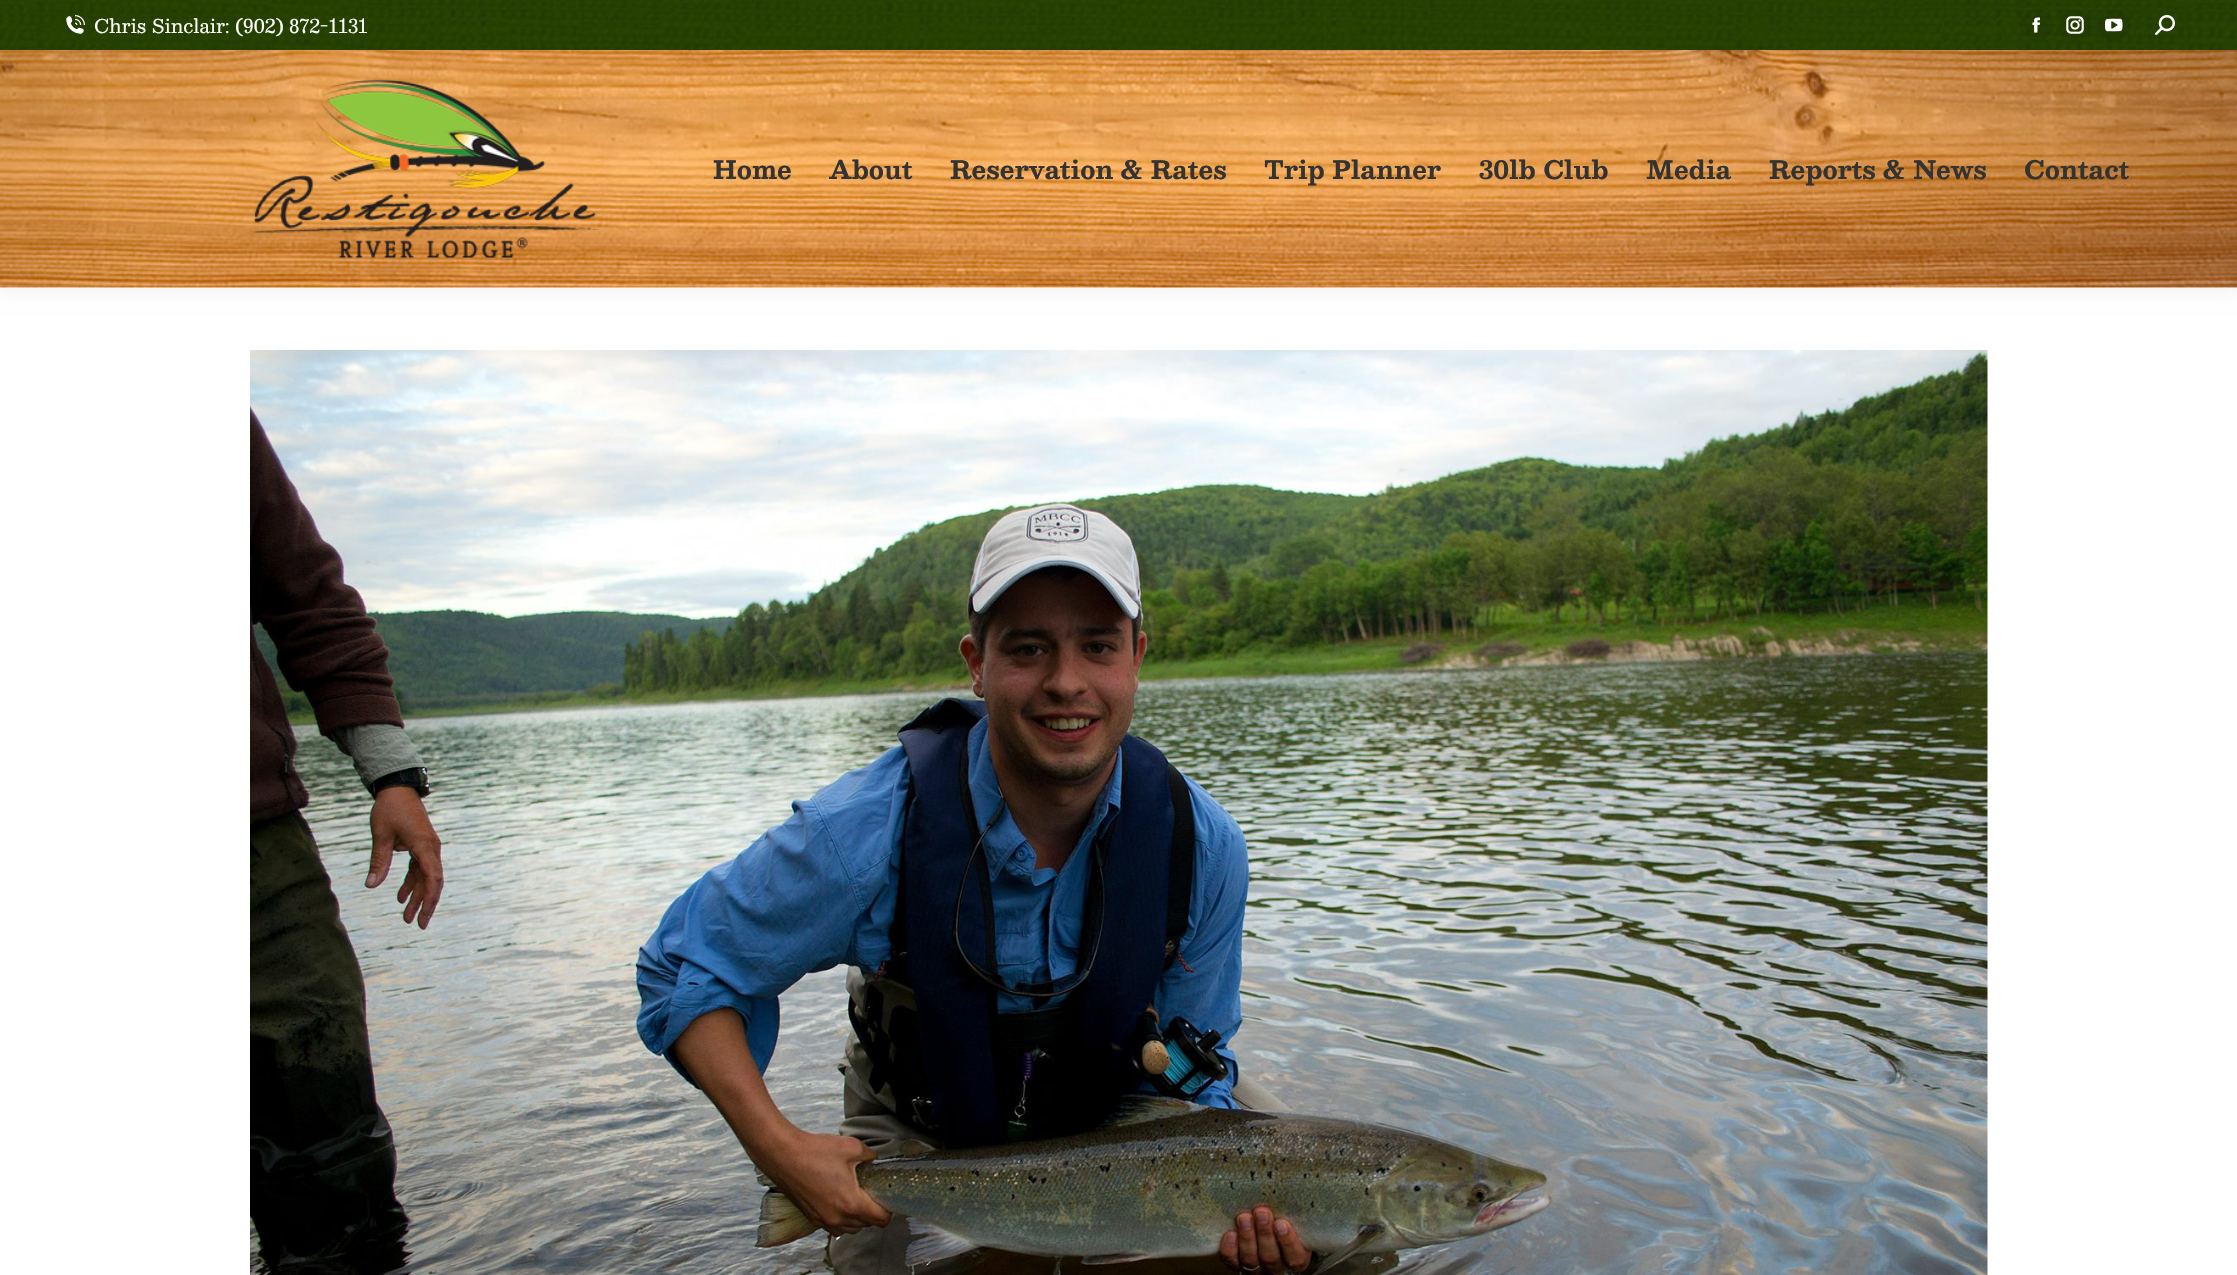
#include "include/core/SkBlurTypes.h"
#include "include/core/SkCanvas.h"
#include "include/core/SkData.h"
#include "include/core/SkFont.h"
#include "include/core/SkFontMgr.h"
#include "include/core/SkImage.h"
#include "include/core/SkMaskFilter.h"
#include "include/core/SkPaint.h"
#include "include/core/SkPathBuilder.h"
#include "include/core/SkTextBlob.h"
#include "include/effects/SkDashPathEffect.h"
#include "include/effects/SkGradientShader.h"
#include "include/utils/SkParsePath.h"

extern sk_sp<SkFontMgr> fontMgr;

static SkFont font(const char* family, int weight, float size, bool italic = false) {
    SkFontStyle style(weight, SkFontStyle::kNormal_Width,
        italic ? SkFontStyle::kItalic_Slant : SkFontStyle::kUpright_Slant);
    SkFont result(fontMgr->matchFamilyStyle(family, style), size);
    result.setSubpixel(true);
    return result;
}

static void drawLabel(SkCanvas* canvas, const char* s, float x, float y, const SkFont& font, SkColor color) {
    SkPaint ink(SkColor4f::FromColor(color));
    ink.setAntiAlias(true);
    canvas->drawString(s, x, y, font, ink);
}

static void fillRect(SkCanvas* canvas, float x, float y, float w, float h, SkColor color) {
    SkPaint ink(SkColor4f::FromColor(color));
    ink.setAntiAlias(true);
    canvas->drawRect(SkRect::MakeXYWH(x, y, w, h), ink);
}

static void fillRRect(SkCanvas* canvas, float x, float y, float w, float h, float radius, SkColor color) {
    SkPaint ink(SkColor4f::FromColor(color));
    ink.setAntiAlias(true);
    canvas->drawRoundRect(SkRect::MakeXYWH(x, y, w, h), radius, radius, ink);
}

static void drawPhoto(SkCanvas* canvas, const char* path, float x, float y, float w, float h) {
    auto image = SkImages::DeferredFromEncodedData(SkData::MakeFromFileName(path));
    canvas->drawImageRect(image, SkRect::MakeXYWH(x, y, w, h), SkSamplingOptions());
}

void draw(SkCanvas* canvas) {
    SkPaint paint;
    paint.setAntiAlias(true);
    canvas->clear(0xFFFFFFFF);
    paint.setColor(0x12000000);
    paint.setMaskFilter(SkMaskFilter::MakeBlur(kNormal_SkBlurStyle, 9.5f));
    canvas->drawRect(SkRect::MakeXYWH(-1, -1, 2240, 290), paint);
    paint.setMaskFilter(nullptr);
    fillRect(canvas, 0, 287, 2237, 1, 0xFFFFFFFF);
    drawPhoto(canvas, "assets/img1.png", 0, 50, 2237, 238);
    drawPhoto(canvas, "assets/img2.png", 0, 0, 2237, 50);
    drawPhoto(canvas, "assets/img3.png", 66, 15, 19, 19);
    SkFont font1 = font("Besley", 400, 18.75f);
    drawLabel(canvas, "Chris Sinclair: (902) 872-1131", 94, 33, font1, 0xFFFFFFFF);
    fillRRect(canvas, 2020, 9, 33, 32, 16, 0x12000000);
    drawPhoto(canvas, "assets/img4.png", 2032, 17, 8, 16);
    canvas->drawCircle(2075, 25, 16, paint);
    drawPhoto(canvas, "assets/img5.png", 2066, 16, 18, 18);
    canvas->drawCircle(2114, 25, 16, paint);
    drawPhoto(canvas, "assets/img6.png", 2105, 18, 18, 14);
    drawPhoto(canvas, "assets/img7.png", 2155, 15, 20, 20);
    fillRect(canvas, 0, 49, 2237, 1, 0x1C333333);
    drawPhoto(canvas, "assets/img8.png", 252, 79, 348, 180);
    SkFont font2 = font("Besley", 700, 25);
    drawLabel(canvas, "Home", 713, 179, font2, 0xFF333333);
    drawLabel(canvas, "About", 829, 179, font2, 0xFF333333);
    drawLabel(canvas, "Reservation & Rates", 950, 179, font2, 0xFF333333);
    drawLabel(canvas, "Trip Planner", 1264, 179, font2, 0xFF333333);
    drawLabel(canvas, "30lb Club", 1479, 179, font2, 0xFF333333);
    drawLabel(canvas, "Media", 1646, 179, font2, 0xFF333333);
    drawLabel(canvas, "Reports & News", 1769, 179, font2, 0xFF333333);
    drawLabel(canvas, "Contact", 2024, 179, font2, 0xFF333333);
    drawPhoto(canvas, "assets/img9.png", 250, 350, 1738, 925);
}
